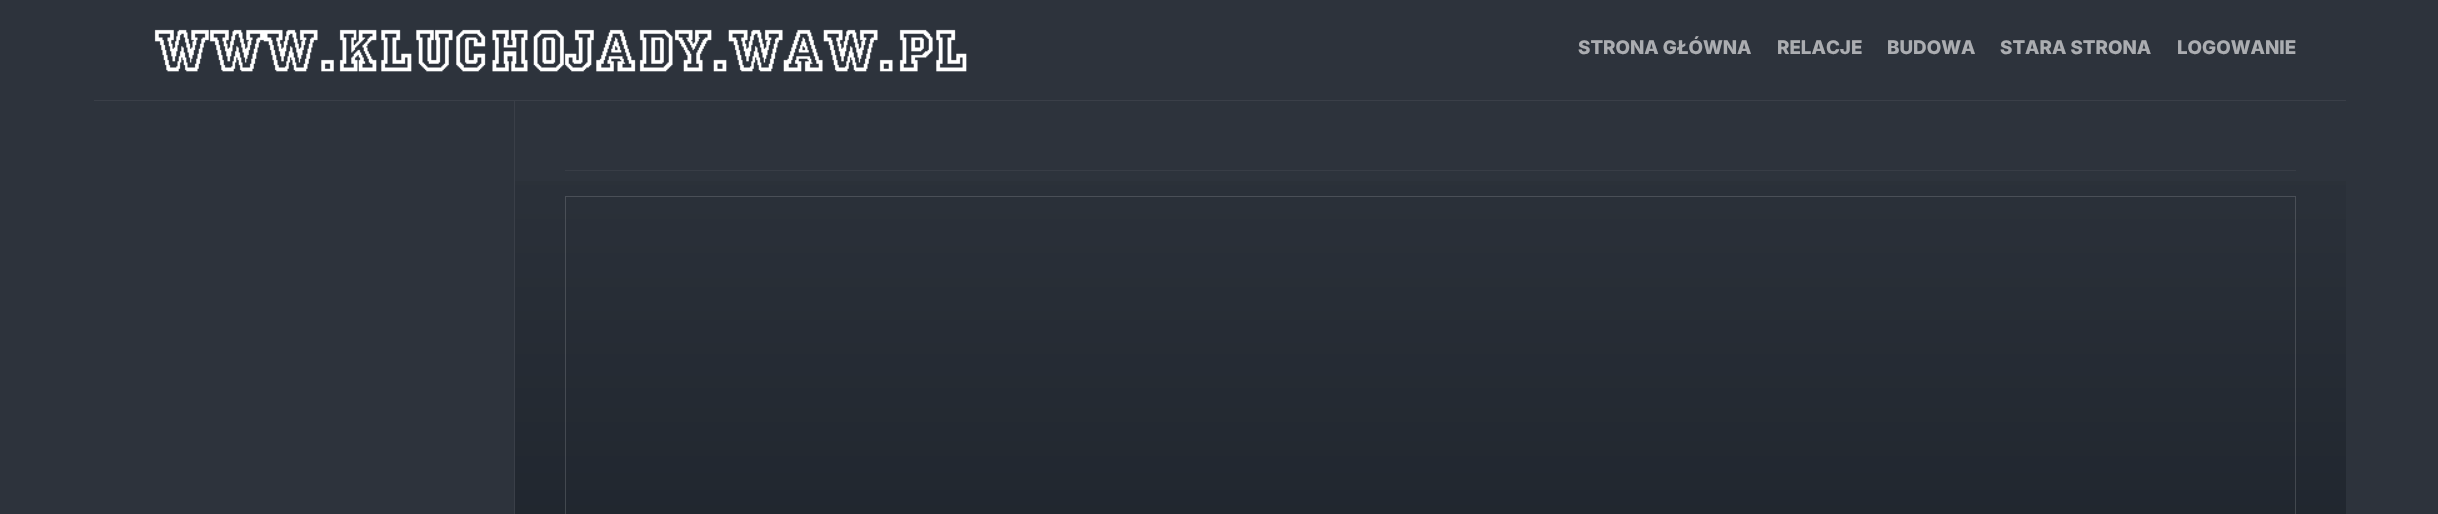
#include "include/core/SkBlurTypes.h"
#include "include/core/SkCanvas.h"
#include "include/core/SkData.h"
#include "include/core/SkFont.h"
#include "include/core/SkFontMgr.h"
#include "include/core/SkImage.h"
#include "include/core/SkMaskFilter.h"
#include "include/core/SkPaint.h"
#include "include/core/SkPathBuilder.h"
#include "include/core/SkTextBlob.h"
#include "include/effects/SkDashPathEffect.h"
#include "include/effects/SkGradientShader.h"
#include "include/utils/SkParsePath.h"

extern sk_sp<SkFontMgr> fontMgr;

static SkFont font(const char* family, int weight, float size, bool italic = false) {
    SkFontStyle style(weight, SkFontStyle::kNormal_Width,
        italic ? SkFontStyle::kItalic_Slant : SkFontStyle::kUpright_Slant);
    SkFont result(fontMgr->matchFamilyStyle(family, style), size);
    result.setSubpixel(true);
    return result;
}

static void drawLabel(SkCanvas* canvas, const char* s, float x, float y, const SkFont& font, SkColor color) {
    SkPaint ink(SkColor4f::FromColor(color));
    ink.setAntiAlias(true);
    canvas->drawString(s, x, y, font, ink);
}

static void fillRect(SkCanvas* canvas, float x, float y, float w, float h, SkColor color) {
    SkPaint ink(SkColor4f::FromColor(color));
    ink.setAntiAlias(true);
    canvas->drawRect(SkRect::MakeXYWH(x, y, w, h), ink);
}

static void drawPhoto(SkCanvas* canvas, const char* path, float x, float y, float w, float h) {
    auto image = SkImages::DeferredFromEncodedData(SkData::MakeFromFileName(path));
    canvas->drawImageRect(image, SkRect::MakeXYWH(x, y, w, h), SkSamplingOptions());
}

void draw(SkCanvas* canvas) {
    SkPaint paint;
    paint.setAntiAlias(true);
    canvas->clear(0xFF2D333C);
    fillRect(canvas, 514, 100, 1, 414, 0xFF3A3F48);
    fillRect(canvas, 94, 100, 2252, 1, 0xFF3A3F48);
    drawPhoto(canvas, "assets/img1.png", 154, 29, 813, 43);
    SkFont font1 = font("Inter", 800, 18.75f);
    drawLabel(canvas, "STRONA GŁÓWNA", 1578, 54, font1, 0xFFABADB1);
    drawLabel(canvas, "RELACJE", 1777, 54, font1, 0xFFABADB1);
    drawLabel(canvas, "BUDOWA", 1887, 54, font1, 0xFFABADB1);
    drawLabel(canvas, "STARA STRONA", 2000, 54, font1, 0xFFABADB1);
    drawLabel(canvas, "LOGOWANIE", 2177, 54, font1, 0xFFABADB1);
    {
        const SkColor colors[] = {0xFF171D25, 0xFF2D333C};
        const float stops[] = {0, 1};
        const SkPoint ends[] = {{1431, 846}, {1431, 100}};
        paint.setShader(SkGradientShader::MakeLinear(ends, colors, stops, 2, SkTileMode::kClamp));
        paint.setAlpha(255);
    }
    canvas->drawRect(SkRect::MakeXYWH(515, 181, 1831, 333), paint);
    fillRect(canvas, 565, 170, 1731, 1, 0xFF383D46);
    paint.setStroke(true);
    paint.setStrokeWidth(1);
    paint.setShader(nullptr);
    paint.setColor(0x26FFFFFF);
    canvas->drawRect(SkRect::MakeXYWH(565.5f, 196.5f, 1730, 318), paint);
}
